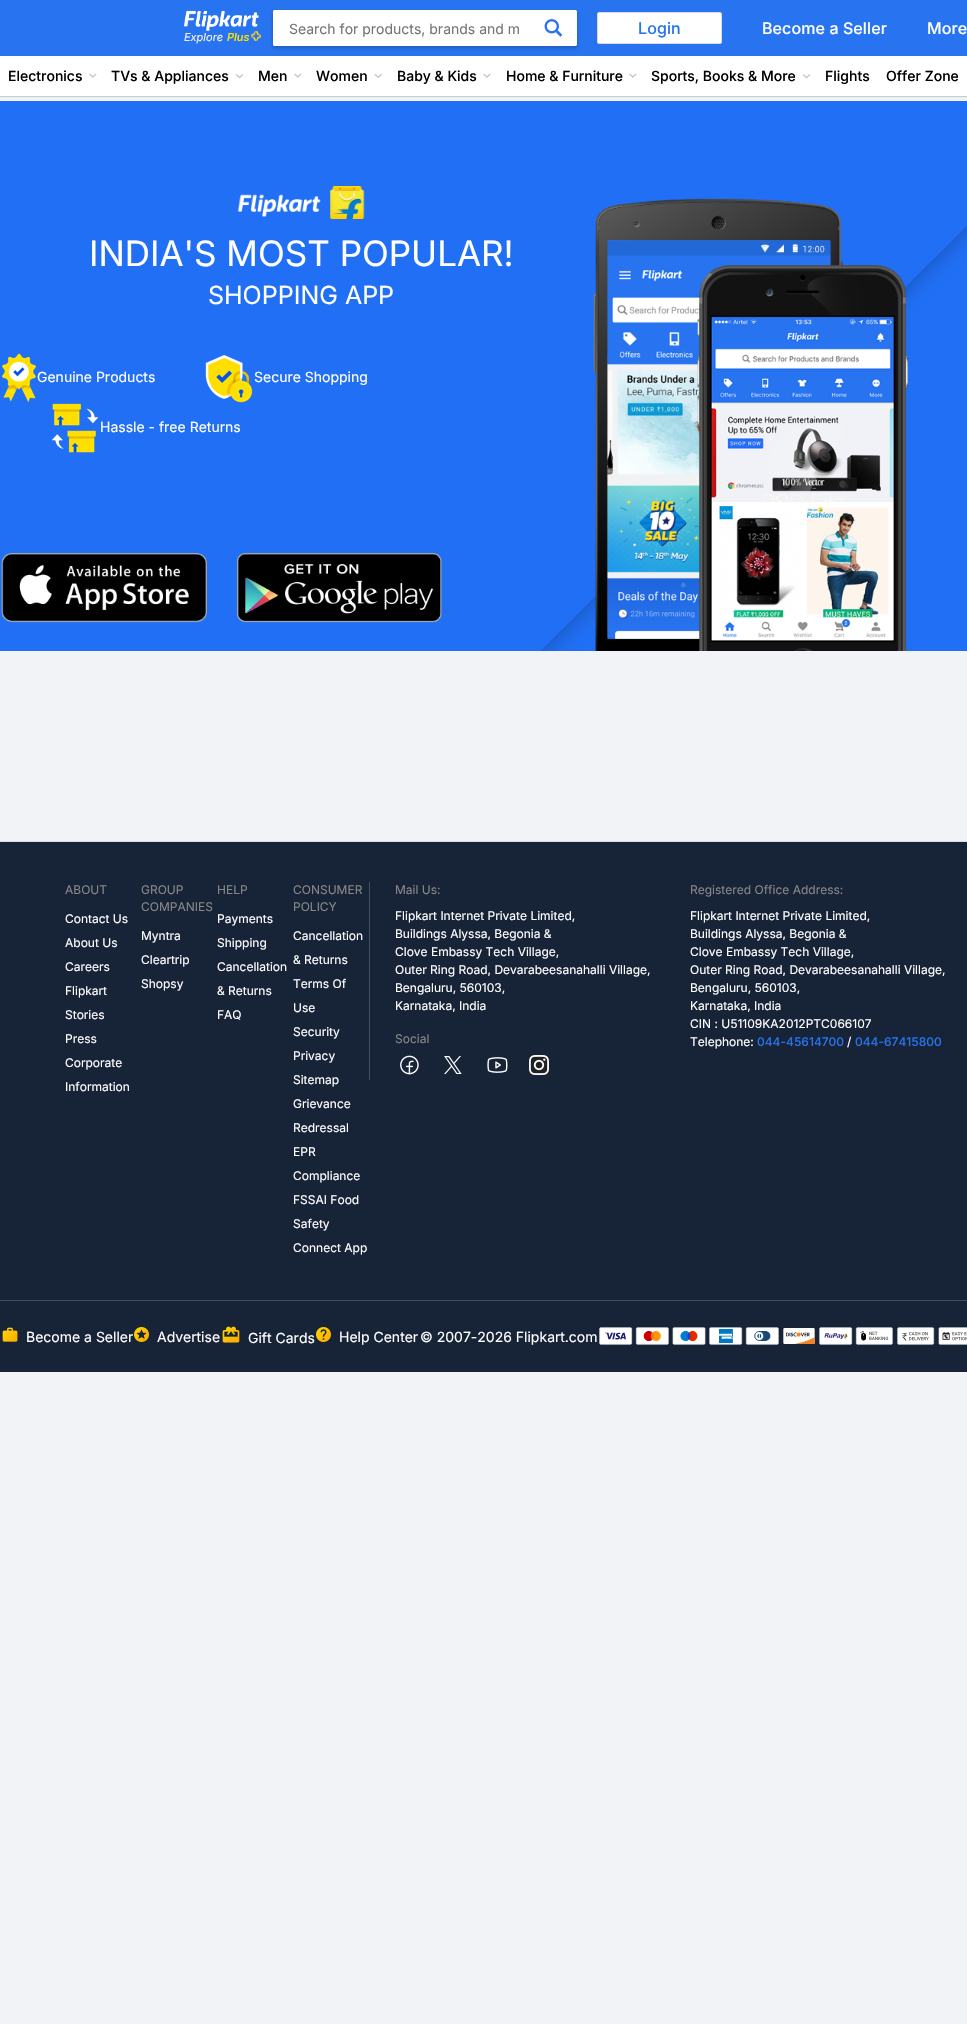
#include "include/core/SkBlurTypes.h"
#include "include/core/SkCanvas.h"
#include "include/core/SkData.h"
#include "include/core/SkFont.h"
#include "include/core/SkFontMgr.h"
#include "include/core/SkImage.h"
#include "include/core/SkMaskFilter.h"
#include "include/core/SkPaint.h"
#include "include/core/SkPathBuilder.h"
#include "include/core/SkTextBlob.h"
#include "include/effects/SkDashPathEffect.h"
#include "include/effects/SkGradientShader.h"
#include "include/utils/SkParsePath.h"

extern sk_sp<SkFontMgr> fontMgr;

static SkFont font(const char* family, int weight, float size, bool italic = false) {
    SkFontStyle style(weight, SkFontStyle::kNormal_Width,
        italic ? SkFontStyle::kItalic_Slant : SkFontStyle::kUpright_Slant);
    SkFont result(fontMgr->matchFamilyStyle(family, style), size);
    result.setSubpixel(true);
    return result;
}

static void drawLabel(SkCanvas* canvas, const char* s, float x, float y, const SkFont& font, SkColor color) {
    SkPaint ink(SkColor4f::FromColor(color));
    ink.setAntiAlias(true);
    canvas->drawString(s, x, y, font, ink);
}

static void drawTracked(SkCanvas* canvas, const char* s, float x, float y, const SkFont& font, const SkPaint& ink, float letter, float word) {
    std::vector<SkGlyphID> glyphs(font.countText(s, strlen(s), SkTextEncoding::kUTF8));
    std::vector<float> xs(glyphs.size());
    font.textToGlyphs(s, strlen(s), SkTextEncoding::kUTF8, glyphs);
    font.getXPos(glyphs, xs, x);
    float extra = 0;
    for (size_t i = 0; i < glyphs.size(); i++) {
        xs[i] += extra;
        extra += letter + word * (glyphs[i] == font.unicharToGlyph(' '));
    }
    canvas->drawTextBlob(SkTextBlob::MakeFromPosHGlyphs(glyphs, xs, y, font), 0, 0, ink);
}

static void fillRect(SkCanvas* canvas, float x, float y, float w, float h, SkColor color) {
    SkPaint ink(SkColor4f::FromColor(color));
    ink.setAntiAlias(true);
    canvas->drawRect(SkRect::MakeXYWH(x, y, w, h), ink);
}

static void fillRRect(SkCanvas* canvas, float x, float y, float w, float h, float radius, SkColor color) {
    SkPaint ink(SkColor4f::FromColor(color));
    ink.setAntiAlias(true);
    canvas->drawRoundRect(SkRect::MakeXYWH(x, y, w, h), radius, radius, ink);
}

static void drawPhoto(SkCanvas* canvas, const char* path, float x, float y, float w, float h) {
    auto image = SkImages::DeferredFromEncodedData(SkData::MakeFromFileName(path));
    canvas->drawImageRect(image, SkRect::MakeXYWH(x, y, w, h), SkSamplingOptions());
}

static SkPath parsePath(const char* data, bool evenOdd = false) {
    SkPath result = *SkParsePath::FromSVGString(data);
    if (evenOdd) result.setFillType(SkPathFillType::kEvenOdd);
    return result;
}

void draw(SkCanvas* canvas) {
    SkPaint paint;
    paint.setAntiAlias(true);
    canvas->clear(0xFFF1F3F6);
    paint.setColor(0x29000000);
    paint.setMaskFilter(SkMaskFilter::MakeBlur(kNormal_SkBlurStyle, 0.5f));
    canvas->drawRect(SkRect::MakeXYWH(0, 57, 967, 40), paint);
    paint.setMaskFilter(nullptr);
    fillRect(canvas, 0, 0, 967, 56, 0xFF2874F0);
    paint.setColor(0x3B000000);
    paint.setMaskFilter(SkMaskFilter::MakeBlur(kNormal_SkBlurStyle, 2));
    canvas->drawRect(SkRect::MakeXYWH(273, 12, 304, 36), paint);
    paint.setMaskFilter(nullptr);
    fillRRect(canvas, 273, 10, 304, 36, 2, 0xFFFFFFFF);
    paint.setColor(0xFFFFFFFF);
    canvas->drawPath(parsePath("M275 10H535V46H275C274 46 273 45 273 44V12C273 11 274 10 275 10Z"), paint);
    SkFont font1 = font("Inter", 400, 14);
    drawLabel(canvas, "Search for products, brands and m", 289, 34, font1, 0xFF757575);
    canvas->drawRoundRect(SkRect::MakeXYWH(535.5f, 10.5f, 41, 35), 1.5f, 1.5f, paint);
    paint.setStroke(true);
    paint.setStrokeWidth(1);
    canvas->drawRoundRect(SkRect::MakeXYWH(535.5f, 10.5f, 41, 35), 1.5f, 1.5f, paint);
    drawPhoto(canvas, "assets/img1.png", 544, 19, 19, 18);
    paint.setStroke(false);
    canvas->drawRoundRect(SkRect::MakeXYWH(597.5f, 12.5f, 124, 31), 1.5f, 1.5f, paint);
    paint.setStroke(true);
    paint.setColor(0xFFDBDBDB);
    canvas->drawRoundRect(SkRect::MakeXYWH(597.5f, 12.5f, 124, 31), 1.5f, 1.5f, paint);
    SkFont font2 = font("Inter", 500, 16);
    paint.setStroke(false);
    paint.setColor(0xFF2874F0);
    drawTracked(canvas, "Login", 638, 34, font2, paint, 0.1f, 0);
    paint.setColor(0xFFFFFFFF);
    drawTracked(canvas, "Become a Seller", 762, 34, font2, paint, 0.1f, 0);
    drawTracked(canvas, "More", 927, 34, font2, paint, 0.1f, 0);
    drawPhoto(canvas, "assets/img2.png", 184, 10, 75, 21);
    SkFont font3 = font("Inter", 400, 11, true);
    drawLabel(canvas, "Explore", 184, 41, font3, 0xFFF0F0F0);
    SkFont font4 = font("Inter", 500, 11, true);
    drawLabel(canvas, "Plus", 227, 41, font4, 0xFFFFE500);
    drawPhoto(canvas, "assets/img3.png", 251, 30, 10, 11);
    fillRect(canvas, 0, 56, 967, 40, 0xFFFFFFFF);
    SkFont font5 = font("Inter", 500, 14);
    drawLabel(canvas, "Electronics", 8, 81, font5, 0xFF000000);
    drawPhoto(canvas, "assets/img4.png", 89, 73, 8, 5);
    drawLabel(canvas, "TVs & Appliances", 111, 81, font5, 0xFF000000);
    drawPhoto(canvas, "assets/img5.png", 235, 74, 8, 5);
    drawLabel(canvas, "Men", 258, 81, font5, 0xFF000000);
    drawPhoto(canvas, "assets/img6.png", 294, 73, 8, 5);
    drawLabel(canvas, "Women", 316, 81, font5, 0xFF000000);
    drawPhoto(canvas, "assets/img7.png", 374, 74, 8, 4);
    drawLabel(canvas, "Baby & Kids", 397, 81, font5, 0xFF000000);
    drawPhoto(canvas, "assets/img8.png", 483, 73, 8, 5);
    drawLabel(canvas, "Home & Furniture", 506, 81, font5, 0xFF000000);
    drawPhoto(canvas, "assets/img9.png", 629, 73, 8, 5);
    drawLabel(canvas, "Sports, Books & More", 651, 81, font5, 0xFF000000);
    drawPhoto(canvas, "assets/img10.png", 803, 74, 8, 5);
    drawLabel(canvas, "Flights", 825, 81, font5, 0xFF000000);
    drawLabel(canvas, "Offer Zone", 886, 81, font5, 0xFF000000);
    drawPhoto(canvas, "assets/img11.png", 0, 101, 967, 550);
    drawPhoto(canvas, "assets/img12.png", 237, 186, 128, 33);
    SkFont font6 = font("Inter", 400, 35);
    drawLabel(canvas, "INDIA'S MOST POPULAR!", 89, 266, font6, 0xFFFFFFFF);
    SkFont font7 = font("Inter", 400, 25);
    drawLabel(canvas, "SHOPPING APP", 208, 304, font7, 0xFFFFFFFF);
    drawPhoto(canvas, "assets/img13.png", 2, 353, 34, 49);
    drawLabel(canvas, "Genuine Products", 37, 382, font1, 0xFFFFFFFF);
    drawPhoto(canvas, "assets/img14.png", 205, 355, 48, 48);
    drawLabel(canvas, "Secure Shopping", 254, 382, font1, 0xFFFFFFFF);
    drawPhoto(canvas, "assets/img15.png", 51, 403, 48, 50);
    drawLabel(canvas, "Hassle - free Returns", 100, 432, font1, 0xFFFFFFFF);
    drawPhoto(canvas, "assets/img16.png", 1, 553, 206, 70);
    drawPhoto(canvas, "assets/img17.png", 237, 553, 205, 70);
    fillRect(canvas, 0, 842, 967, 530, 0xFF172337);
    fillRect(canvas, 0, 841, 967, 1, 0xFFDDDDDD);
    SkFont font8 = font("Inter", 400, 12);
    drawLabel(canvas, "ABOUT", 65, 894, font8, 0xFF878787);
    drawLabel(canvas, "Contact Us", 65, 923, font8, 0xFFFFFFFF);
    drawLabel(canvas, "About Us", 65, 947, font8, 0xFFFFFFFF);
    drawLabel(canvas, "Careers", 65, 971, font8, 0xFFFFFFFF);
    drawLabel(canvas, "Flipkart", 65, 995, font8, 0xFFFFFFFF);
    drawLabel(canvas, "Stories", 65, 1019, font8, 0xFFFFFFFF);
    drawLabel(canvas, "Press", 65, 1043, font8, 0xFFFFFFFF);
    drawLabel(canvas, "Corporate", 65, 1067, font8, 0xFFFFFFFF);
    drawLabel(canvas, "Information", 65, 1091, font8, 0xFFFFFFFF);
    drawLabel(canvas, "GROUP", 141, 894, font8, 0xFF878787);
    drawLabel(canvas, "COMPANIES", 141, 911, font8, 0xFF878787);
    drawLabel(canvas, "Myntra", 141, 940, font8, 0xFFFFFFFF);
    drawLabel(canvas, "Cleartrip", 141, 964, font8, 0xFFFFFFFF);
    drawLabel(canvas, "Shopsy", 141, 988, font8, 0xFFFFFFFF);
    drawLabel(canvas, "HELP", 217, 894, font8, 0xFF878787);
    drawLabel(canvas, "Payments", 217, 923, font8, 0xFFFFFFFF);
    drawLabel(canvas, "Shipping", 217, 947, font8, 0xFFFFFFFF);
    drawLabel(canvas, "Cancellation", 217, 971, font8, 0xFFFFFFFF);
    drawLabel(canvas, "& Returns", 217, 995, font8, 0xFFFFFFFF);
    drawLabel(canvas, "FAQ", 217, 1019, font8, 0xFFFFFFFF);
    drawLabel(canvas, "CONSUMER", 293, 894, font8, 0xFF878787);
    drawLabel(canvas, "POLICY", 293, 911, font8, 0xFF878787);
    drawLabel(canvas, "Cancellation", 293, 940, font8, 0xFFFFFFFF);
    drawLabel(canvas, "& Returns", 293, 964, font8, 0xFFFFFFFF);
    drawLabel(canvas, "Terms Of", 293, 988, font8, 0xFFFFFFFF);
    drawLabel(canvas, "Use", 293, 1012, font8, 0xFFFFFFFF);
    drawLabel(canvas, "Security", 293, 1036, font8, 0xFFFFFFFF);
    drawLabel(canvas, "Privacy", 293, 1060, font8, 0xFFFFFFFF);
    drawLabel(canvas, "Sitemap", 293, 1084, font8, 0xFFFFFFFF);
    drawLabel(canvas, "Grievance", 293, 1108, font8, 0xFFFFFFFF);
    drawLabel(canvas, "Redressal", 293, 1132, font8, 0xFFFFFFFF);
    drawLabel(canvas, "EPR", 293, 1156, font8, 0xFFFFFFFF);
    drawLabel(canvas, "Compliance", 293, 1180, font8, 0xFFFFFFFF);
    drawLabel(canvas, "FSSAI Food", 293, 1204, font8, 0xFFFFFFFF);
    drawLabel(canvas, "Safety", 293, 1228, font8, 0xFFFFFFFF);
    drawLabel(canvas, "Connect App", 293, 1252, font8, 0xFFFFFFFF);
    fillRect(canvas, 369, 882, 1, 198, 0xFF454D5E);
    drawLabel(canvas, "Mail Us:", 395, 894, font8, 0xFF878787);
    drawLabel(canvas, "Flipkart Internet Private Limited,", 395, 920, font8, 0xFFFFFFFF);
    drawLabel(canvas, "Buildings Alyssa, Begonia &", 395, 938, font8, 0xFFFFFFFF);
    drawLabel(canvas, "Clove Embassy Tech Village,", 395, 956, font8, 0xFFFFFFFF);
    drawLabel(canvas, "Outer Ring Road, Devarabeesanahalli Village,", 395, 974, font8, 0xFFFFFFFF);
    drawLabel(canvas, "Bengaluru, 560103,", 395, 992, font8, 0xFFFFFFFF);
    drawLabel(canvas, "Karnataka, India", 395, 1010, font8, 0xFFFFFFFF);
    drawLabel(canvas, "Social", 395, 1043, font8, 0xFF878787);
    drawPhoto(canvas, "assets/img18.png", 400, 1055, 19, 20);
    drawPhoto(canvas, "assets/img19.png", 444, 1056, 18, 18);
    drawPhoto(canvas, "assets/img20.png", 487, 1057, 21, 16);
    drawPhoto(canvas, "assets/img21.png", 529, 1055, 20, 20);
    drawLabel(canvas, "Registered Office Address:", 690, 894, font8, 0xFF878787);
    drawLabel(canvas, "Flipkart Internet Private Limited,", 690, 920, font8, 0xFFFFFFFF);
    drawLabel(canvas, "Buildings Alyssa, Begonia &", 690, 938, font8, 0xFFFFFFFF);
    drawLabel(canvas, "Clove Embassy Tech Village,", 690, 956, font8, 0xFFFFFFFF);
    drawLabel(canvas, "Outer Ring Road, Devarabeesanahalli Village,", 690, 974, font8, 0xFFFFFFFF);
    drawLabel(canvas, "Bengaluru, 560103,", 690, 992, font8, 0xFFFFFFFF);
    drawLabel(canvas, "Karnataka, India", 690, 1010, font8, 0xFFFFFFFF);
    drawLabel(canvas, "CIN : U51109KA2012PTC066107", 690, 1028, font8, 0xFFFFFFFF);
    drawLabel(canvas, "Telephone:", 690, 1046, font8, 0xFFFFFFFF);
    SkFont font9 = font("Inter", 500, 12);
    drawLabel(canvas, "044-45614700", 757, 1046, font9, 0xFF2874F0);
    drawLabel(canvas, "/", 847, 1046, font8, 0xFFFFFFFF);
    drawLabel(canvas, "044-67415800", 855, 1046, font9, 0xFF2874F0);
    fillRect(canvas, 0, 1300, 967, 1, 0xFF454D5E);
    drawPhoto(canvas, "assets/img22.png", 2, 1327, 16, 15);
    drawLabel(canvas, "Become a Seller", 26, 1342, font1, 0xFFFFFFFF);
    drawPhoto(canvas, "assets/img23.png", 134, 1327, 15, 15);
    drawLabel(canvas, "Advertise", 157, 1342, font1, 0xFFFFFFFF);
    drawPhoto(canvas, "assets/img24.png", 222, 1326, 18, 17);
    drawLabel(canvas, "Gift Cards", 248, 1343, font1, 0xFFFFFFFF);
    drawPhoto(canvas, "assets/img25.png", 316, 1327, 15, 15);
    drawLabel(canvas, "Help Center", 339, 1342, font1, 0xFFFFFFFF);
    drawLabel(canvas, "© 2007-2026 Flipkart.com", 420, 1342, font1, 0xFFFFFFFF);
    drawPhoto(canvas, "assets/img26.png", 599, 1327, 368, 18);
}
